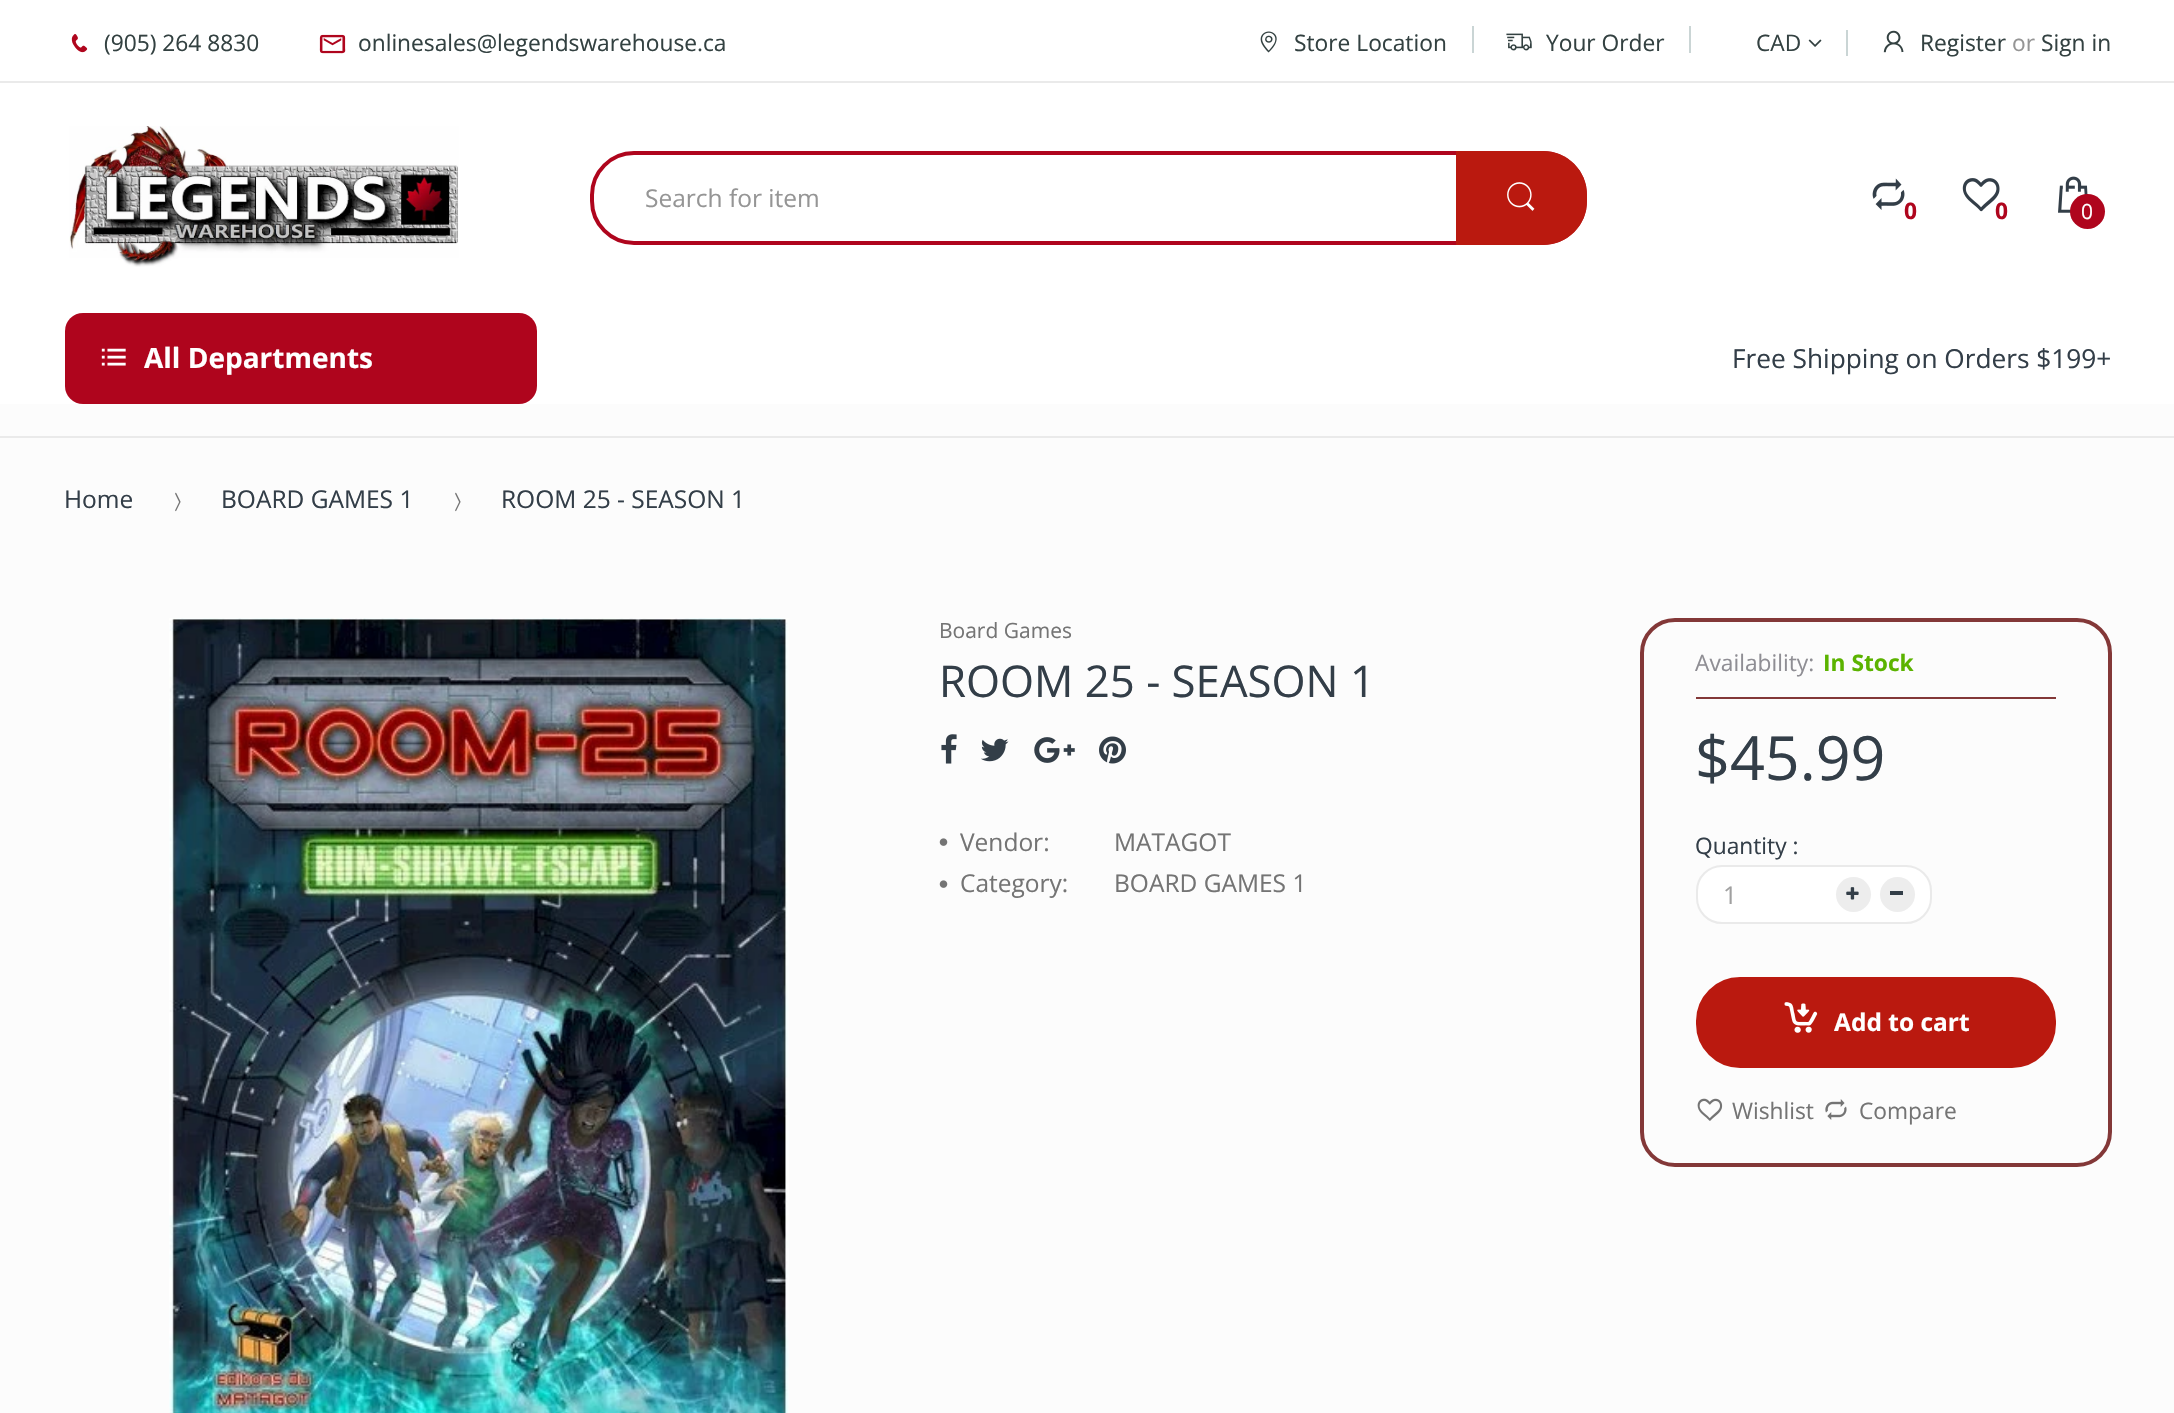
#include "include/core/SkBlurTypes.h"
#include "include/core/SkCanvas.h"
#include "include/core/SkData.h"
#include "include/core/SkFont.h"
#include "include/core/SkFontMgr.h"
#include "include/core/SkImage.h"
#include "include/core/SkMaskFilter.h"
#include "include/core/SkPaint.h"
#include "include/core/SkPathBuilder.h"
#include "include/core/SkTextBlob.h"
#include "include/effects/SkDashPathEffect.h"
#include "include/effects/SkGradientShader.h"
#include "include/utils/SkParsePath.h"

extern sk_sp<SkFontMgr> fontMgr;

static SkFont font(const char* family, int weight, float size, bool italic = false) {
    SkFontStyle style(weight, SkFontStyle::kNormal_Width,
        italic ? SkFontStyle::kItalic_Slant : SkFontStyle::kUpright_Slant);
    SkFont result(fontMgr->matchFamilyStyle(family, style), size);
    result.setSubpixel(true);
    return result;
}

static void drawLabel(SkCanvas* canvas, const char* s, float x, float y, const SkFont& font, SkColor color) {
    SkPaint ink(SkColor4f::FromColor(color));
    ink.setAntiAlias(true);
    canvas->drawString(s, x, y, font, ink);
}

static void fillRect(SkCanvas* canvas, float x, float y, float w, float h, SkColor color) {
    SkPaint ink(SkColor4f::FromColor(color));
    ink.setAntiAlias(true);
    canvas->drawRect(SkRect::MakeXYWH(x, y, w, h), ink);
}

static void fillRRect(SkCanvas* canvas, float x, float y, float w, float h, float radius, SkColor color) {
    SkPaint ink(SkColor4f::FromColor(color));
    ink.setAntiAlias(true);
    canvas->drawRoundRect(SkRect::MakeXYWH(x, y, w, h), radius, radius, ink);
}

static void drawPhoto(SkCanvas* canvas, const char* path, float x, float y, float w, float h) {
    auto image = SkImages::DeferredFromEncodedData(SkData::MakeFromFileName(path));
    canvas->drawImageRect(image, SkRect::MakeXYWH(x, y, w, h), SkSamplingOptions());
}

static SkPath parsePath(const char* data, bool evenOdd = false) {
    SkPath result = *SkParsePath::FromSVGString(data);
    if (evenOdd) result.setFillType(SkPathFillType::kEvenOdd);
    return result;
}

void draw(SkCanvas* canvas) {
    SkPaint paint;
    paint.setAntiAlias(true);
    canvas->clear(0xFFFCFCFC);
    fillRect(canvas, 0, 0, 2174, 404, 0xFFFFFFFF);
    fillRect(canvas, 0, 81, 2174, 2, 0xFFEAEAEA);
    drawPhoto(canvas, "assets/img1.png", 71, 34, 17, 19);
    SkFont font1 = font("Open Sans", 400, 22.75f);
    drawLabel(canvas, "(905) 264 8830", 104, 51, font1, 0xFF334141);
    drawPhoto(canvas, "assets/img2.png", 319, 34, 27, 20);
    drawLabel(canvas, "onlinesales@legendswarehouse.ca", 358, 51, font1, 0xFF334141);
    drawPhoto(canvas, "assets/img3.png", 1260, 31, 17, 22);
    drawLabel(canvas, "Store Location", 1294, 51, font1, 0xFF334141);
    fillRect(canvas, 1472, 26, 2, 27, 0xFFCAD5D5);
    drawPhoto(canvas, "assets/img4.png", 1506, 33, 26, 18);
    drawLabel(canvas, "Your Order", 1546, 51, font1, 0xFF334141);
    fillRect(canvas, 1689, 26, 2, 27, 0xFFCAD5D5);
    drawLabel(canvas, "CAD", 1756, 51, font1, 0xFF334141);
    drawPhoto(canvas, "assets/img5.png", 1808, 39, 14, 8);
    fillRect(canvas, 1846, 30, 2, 26, 0xFFCAD5D5);
    drawPhoto(canvas, "assets/img6.png", 1883, 30, 21, 23);
    drawLabel(canvas, "Register", 1920, 51, font1, 0xFF334141);
    drawLabel(canvas, "or", 2012, 51, font1, 0xFF959595);
    drawLabel(canvas, "Sign in", 2041, 51, font1, 0xFF334141);
    drawPhoto(canvas, "assets/img7.png", 69, 126, 390, 141);
    paint.setStroke(true);
    paint.setStrokeWidth(4);
    paint.setColor(0xFFAF051D);
    canvas->drawRoundRect(SkRect::MakeXYWH(592, 153, 993, 90), 42, 42, paint);
    SkFont font2 = font("Open Sans", 400, 24.5f);
    drawLabel(canvas, "Search for item", 645, 207, font2, 0xFF959595);
    paint.setStroke(false);
    paint.setColor(0xFFBA190F);
    canvas->drawPath(parsePath("M1456 151H1543C1567.5 151 1587 170.5 1587 195V201C1587 225.5 1567.5 245 1543 245H1456Z"), paint);
    drawPhoto(canvas, "assets/img8.png", 1507, 182, 28, 29);
    drawPhoto(canvas, "assets/img9.png", 1872, 178, 33, 32);
    SkFont font3 = font("Open Sans", 700, 22.75f);
    drawLabel(canvas, "0", 1904, 219, font3, 0xFFAF051D);
    drawPhoto(canvas, "assets/img10.png", 1962, 178, 38, 34);
    drawLabel(canvas, "0", 1995, 219, font3, 0xFFAF051D);
    drawPhoto(canvas, "assets/img11.png", 2058, 176, 30, 37);
    paint.setColor(0xFFAF051D);
    canvas->drawCircle(2087.5f, 211.5f, 17.5f, paint);
    SkFont font4 = font("Open Sans", 400, 21);
    drawLabel(canvas, "0", 2081, 219, font4, 0xFFFFFFFF);
    fillRRect(canvas, 65, 313, 472, 91, 18, 0xFFAF051D);
    drawPhoto(canvas, "assets/img12.png", 101, 348, 25, 18);
    SkFont font5 = font("Open Sans", 700, 28);
    drawLabel(canvas, "All Departments", 144, 368, font5, 0xFFFFFFFF);
    SkFont font6 = font("Open Sans", 400, 26.25f);
    drawLabel(canvas, "Free Shipping on Orders $199+", 1732, 368, font6, 0xFF333E48);
    fillRect(canvas, 0, 436, 2174, 2, 0xFFEAEAEA);
    drawLabel(canvas, "Home", 64, 508, font2, 0xFF333E48);
    drawPhoto(canvas, "assets/img13.png", 175, 492, 6, 20);
    drawLabel(canvas, "BOARD GAMES 1", 221, 508, font2, 0xFF333E48);
    drawPhoto(canvas, "assets/img13.png", 455, 492, 6, 20);
    drawLabel(canvas, "ROOM 25 - SEASON 1", 501, 508, font2, 0xFF333E48);
    drawPhoto(canvas, "assets/img14.png", 169, 618, 620, 795);
    drawLabel(canvas, "Board Games", 939, 638, font4, 0xFF747474);
    SkFont font7 = font("Open Sans", 400, 43.75f);
    drawLabel(canvas, "ROOM 25 - SEASON 1", 939, 697, font7, 0xFF333E48);
    drawPhoto(canvas, "assets/img15.png", 941, 734, 16, 30);
    drawPhoto(canvas, "assets/img16.png", 981, 738, 28, 24);
    drawPhoto(canvas, "assets/img17.png", 1034, 737, 41, 26);
    drawPhoto(canvas, "assets/img18.png", 1099, 736, 27, 28);
    drawPhoto(canvas, "assets/img19.png", 939, 838, 9, 8);
    drawLabel(canvas, "Vendor:", 960, 851, font2, 0xFF747474);
    drawLabel(canvas, "MATAGOT", 1114, 851, font2, 0xFF747474);
    drawPhoto(canvas, "assets/img19.png", 939, 880, 9, 8);
    drawLabel(canvas, "Category:", 960, 892, font2, 0xFF747474);
    drawLabel(canvas, "BOARD GAMES 1", 1114, 892, font2, 0xFF747474);
    paint.setStroke(true);
    paint.setColor(0xFF833838);
    canvas->drawRoundRect(SkRect::MakeXYWH(1642, 620, 468, 545), 33, 33, paint);
    fillRect(canvas, 1696, 697, 360, 2, 0xFF833838);
    drawLabel(canvas, "Availability:", 1695, 671, font1, 0xFF8F8E94);
    drawLabel(canvas, "In Stock", 1823, 671, font3, 0xFF5BB300);
    SkFont font8 = font("Open Sans", 400, 61);
    drawLabel(canvas, "$45.99", 1695, 780, font8, 0xFF333E48);
    drawLabel(canvas, "Quantity :", 1695, 854, font1, 0xFF333E48);
    paint.setStroke(false);
    paint.setColor(0xFFFFFFFF);
    canvas->drawRoundRect(SkRect::MakeXYWH(1697, 866, 234, 57), 25, 25, paint);
    paint.setStroke(true);
    paint.setStrokeWidth(2);
    paint.setColor(0xFFEAEAEA);
    canvas->drawRoundRect(SkRect::MakeXYWH(1697, 866, 234, 57), 25, 25, paint);
    drawLabel(canvas, "1", 1723, 904, font2, 0xFFA0A0A0);
    paint.setStroke(false);
    paint.setColor(0xFFEDEDED);
    canvas->drawCircle(1853.5f, 894.5f, 17.5f, paint);
    drawPhoto(canvas, "assets/img20.png", 1846, 887, 13, 13);
    canvas->drawCircle(1897.5f, 894.5f, 17.5f, paint);
    fillRect(canvas, 1890, 891, 13, 4, 0xFF333E48);
    paint.setColor(0xFFBA190F);
    canvas->drawRoundRect(SkRect::MakeXYWH(1697, 978, 358, 89), 43, 43, paint);
    paint.setStroke(true);
    canvas->drawRoundRect(SkRect::MakeXYWH(1697, 978, 358, 89), 43, 43, paint);
    drawPhoto(canvas, "assets/img21.png", 1784, 1002, 34, 31);
    SkFont font9 = font("Open Sans", 700, 24.5f);
    drawLabel(canvas, "Add to cart", 1834, 1031, font9, 0xFFFFFFFF);
    drawPhoto(canvas, "assets/img22.png", 1697, 1098, 26, 23);
    drawLabel(canvas, "Wishlist", 1732, 1119, font1, 0xFF747474);
    drawPhoto(canvas, "assets/img23.png", 1825, 1099, 22, 21);
    drawLabel(canvas, "Compare", 1859, 1119, font1, 0xFF747474);
}
